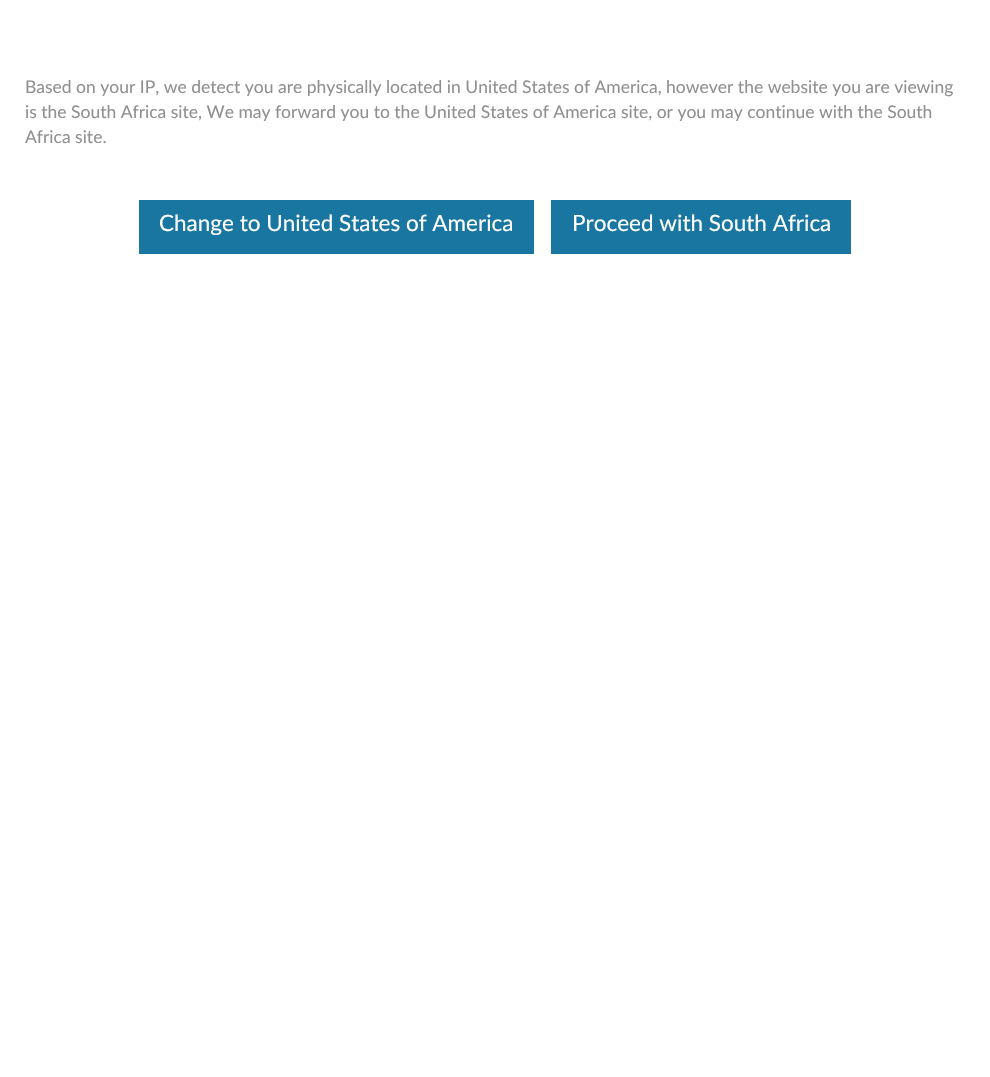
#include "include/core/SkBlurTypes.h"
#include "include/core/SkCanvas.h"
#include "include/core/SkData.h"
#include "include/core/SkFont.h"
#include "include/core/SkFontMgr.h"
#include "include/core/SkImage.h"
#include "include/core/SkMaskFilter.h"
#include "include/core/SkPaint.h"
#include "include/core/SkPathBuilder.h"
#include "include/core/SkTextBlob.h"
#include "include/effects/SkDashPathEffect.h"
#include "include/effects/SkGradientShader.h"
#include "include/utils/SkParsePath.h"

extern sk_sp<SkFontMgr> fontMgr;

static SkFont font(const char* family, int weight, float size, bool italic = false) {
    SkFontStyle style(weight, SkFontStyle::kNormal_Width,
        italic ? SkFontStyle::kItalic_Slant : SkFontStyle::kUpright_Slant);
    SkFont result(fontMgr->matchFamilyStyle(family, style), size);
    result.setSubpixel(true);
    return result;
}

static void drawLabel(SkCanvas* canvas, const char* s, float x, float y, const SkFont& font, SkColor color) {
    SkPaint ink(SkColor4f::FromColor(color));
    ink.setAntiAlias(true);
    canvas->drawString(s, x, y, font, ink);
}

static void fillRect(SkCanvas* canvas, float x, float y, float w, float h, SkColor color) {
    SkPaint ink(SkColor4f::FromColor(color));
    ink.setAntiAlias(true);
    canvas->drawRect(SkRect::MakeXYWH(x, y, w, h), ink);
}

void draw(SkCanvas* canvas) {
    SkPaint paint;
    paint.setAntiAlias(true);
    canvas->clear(0xFFFFFFFF);
    SkFont font1 = font("Lato", 400, 17.5f);
    drawLabel(canvas, "Based on your IP, we detect you are physically located in United States of America, however the website you are viewing", 25, 93, font1, 0xFF909090);
    drawLabel(canvas, "is the South Africa site, We may forward you to the United States of America site, or you may continue with the South", 25, 118, font1, 0xFF909090);
    drawLabel(canvas, "Africa site.", 25, 143, font1, 0xFF909090);
    fillRect(canvas, 139, 200, 395, 54, 0xFF1976A1);
    SkFont font2 = font("Lato", 400, 22.5f);
    drawLabel(canvas, "Change to United States of America", 159, 231, font2, 0xFFFFFFFF);
    fillRect(canvas, 551, 200, 300, 54, 0xFF1976A1);
    drawLabel(canvas, "Proceed with South Africa", 572, 231, font2, 0xFFFFFFFF);
}
